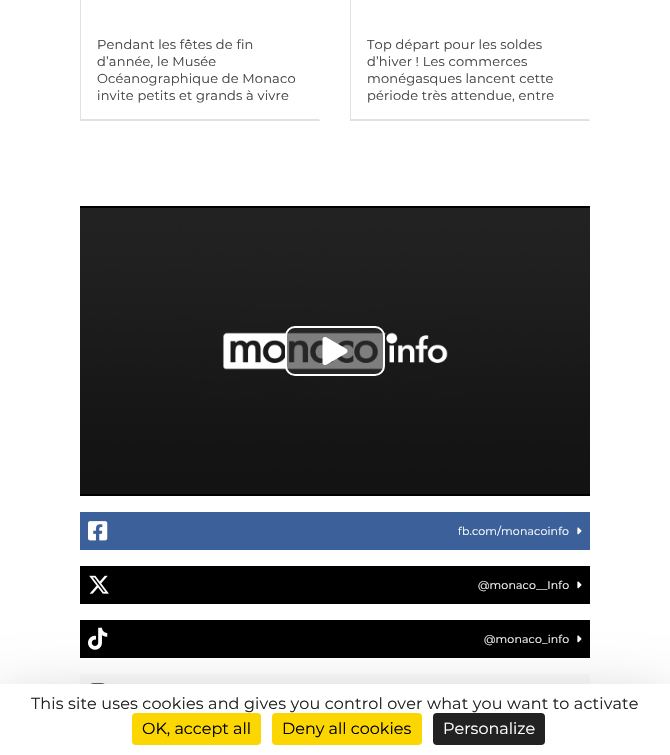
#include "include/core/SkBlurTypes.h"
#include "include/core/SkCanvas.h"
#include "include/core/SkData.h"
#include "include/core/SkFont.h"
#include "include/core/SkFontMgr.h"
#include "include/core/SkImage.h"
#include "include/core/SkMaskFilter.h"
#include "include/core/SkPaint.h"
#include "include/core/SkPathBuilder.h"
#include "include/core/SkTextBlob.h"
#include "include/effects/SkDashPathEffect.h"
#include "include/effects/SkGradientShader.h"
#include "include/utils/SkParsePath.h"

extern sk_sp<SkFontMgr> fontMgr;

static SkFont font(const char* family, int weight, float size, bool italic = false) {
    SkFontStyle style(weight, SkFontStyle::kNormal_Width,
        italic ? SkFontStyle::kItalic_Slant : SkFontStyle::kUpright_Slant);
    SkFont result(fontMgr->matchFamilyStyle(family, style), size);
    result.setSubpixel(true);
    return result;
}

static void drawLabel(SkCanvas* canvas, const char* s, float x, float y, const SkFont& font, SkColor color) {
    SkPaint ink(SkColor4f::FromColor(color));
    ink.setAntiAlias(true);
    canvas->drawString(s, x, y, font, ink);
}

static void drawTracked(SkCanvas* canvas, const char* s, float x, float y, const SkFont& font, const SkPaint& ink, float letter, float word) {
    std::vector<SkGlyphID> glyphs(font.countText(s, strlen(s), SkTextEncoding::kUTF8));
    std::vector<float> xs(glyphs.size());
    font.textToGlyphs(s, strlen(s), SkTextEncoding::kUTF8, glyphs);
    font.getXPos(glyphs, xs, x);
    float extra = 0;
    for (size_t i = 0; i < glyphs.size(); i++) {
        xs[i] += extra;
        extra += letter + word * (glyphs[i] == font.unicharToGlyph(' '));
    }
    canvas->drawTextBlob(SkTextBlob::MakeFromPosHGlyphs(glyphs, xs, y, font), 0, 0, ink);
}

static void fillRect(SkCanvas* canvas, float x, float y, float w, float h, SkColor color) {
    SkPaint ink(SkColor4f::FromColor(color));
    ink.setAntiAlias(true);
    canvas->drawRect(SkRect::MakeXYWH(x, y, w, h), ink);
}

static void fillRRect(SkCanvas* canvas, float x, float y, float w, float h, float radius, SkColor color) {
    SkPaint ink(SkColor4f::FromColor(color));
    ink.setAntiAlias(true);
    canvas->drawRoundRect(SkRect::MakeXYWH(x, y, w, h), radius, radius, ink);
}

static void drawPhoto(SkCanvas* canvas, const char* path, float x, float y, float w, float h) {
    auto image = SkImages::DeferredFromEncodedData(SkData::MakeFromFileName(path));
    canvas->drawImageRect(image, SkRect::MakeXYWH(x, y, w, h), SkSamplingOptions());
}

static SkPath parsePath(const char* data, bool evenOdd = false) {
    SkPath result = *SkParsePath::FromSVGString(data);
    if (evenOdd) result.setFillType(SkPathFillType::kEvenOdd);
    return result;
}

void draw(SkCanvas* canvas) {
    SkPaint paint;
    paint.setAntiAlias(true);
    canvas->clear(0xFFFFFFFF);
    paint.setColor(0xFFE1E1E1);
    canvas->drawPath(parsePath("M320 121H80L81 119H319Z"), paint);
    fillRect(canvas, 80, 0, 1, 121, 0xFFE1E1E1);
    SkFont font1 = font("Montserrat", 400, 13);
    paint.setColor(0xFF444444);
    drawTracked(canvas, "Pendant les fêtes de fin", 97, 49, font1, paint, 0.15f, 0);
    drawTracked(canvas, "d’année, le Musée", 97, 66, font1, paint, 0.15f, 0);
    drawTracked(canvas, "Océanographique de Monaco", 97, 83, font1, paint, 0.15f, 0);
    drawTracked(canvas, "invite petits et grands à vivre", 97, 100, font1, paint, 0.15f, 0);
    paint.setColor(0xFFE1E1E1);
    canvas->drawPath(parsePath("M590 121H350L351 119H589Z"), paint);
    fillRect(canvas, 350, 0, 1, 121, 0xFFE1E1E1);
    paint.setColor(0xFF444444);
    drawTracked(canvas, "Top départ pour les soldes", 367, 49, font1, paint, 0.15f, 0);
    drawTracked(canvas, "d’hiver ! Les commerces", 367, 66, font1, paint, 0.15f, 0);
    drawTracked(canvas, "monégasques lancent cette", 367, 83, font1, paint, 0.15f, 0);
    drawTracked(canvas, "période très attendue, entre", 367, 100, font1, paint, 0.15f, 0);
    fillRect(canvas, 80, 206, 510, 290, 0xFF000000);
    drawPhoto(canvas, "assets/img1.png", 80, 208, 510, 286);
    paint.setColor(0x9C2C2C2C);
    canvas->drawRoundRect(SkRect::MakeXYWH(286, 327, 98, 48), 9, 9, paint);
    paint.setStroke(true);
    paint.setStrokeWidth(2);
    paint.setColor(0xFFFFFFFF);
    canvas->drawRoundRect(SkRect::MakeXYWH(286, 327, 98, 48), 9, 9, paint);
    drawPhoto(canvas, "assets/img2.png", 322, 337, 26, 28);
    fillRect(canvas, 80, 512, 510, 38, 0xFF3B609A);
    drawPhoto(canvas, "assets/img3.png", 88, 521, 20, 20);
    SkFont font2 = font("Montserrat", 400, 11);
    paint.setStroke(false);
    drawTracked(canvas, "fb.com/monacoinfo", 458, 535, font2, paint, 0.15f, 0);
    drawPhoto(canvas, "assets/img4.png", 577, 527, 5, 8);
    fillRect(canvas, 80, 566, 510, 38, 0xFF000000);
    drawPhoto(canvas, "assets/img5.png", 89, 575, 20, 19);
    drawTracked(canvas, "@monaco__Info", 478, 589, font2, paint, 0.15f, 0);
    drawPhoto(canvas, "assets/img6.png", 577, 581, 5, 8);
    fillRect(canvas, 80, 620, 510, 38, 0xFF000000);
    drawPhoto(canvas, "assets/img7.png", 88, 627, 20, 23);
    drawTracked(canvas, "@monaco_info", 484, 643, font2, paint, 0.15f, 0);
    drawPhoto(canvas, "assets/img6.png", 577, 635, 5, 8);
    fillRect(canvas, 80, 674, 510, 10, 0xFFFAFAFA);
    drawPhoto(canvas, "assets/img8.png", 90, 683, 15, 1);
    paint.setColor(0x40000000);
    paint.setMaskFilter(SkMaskFilter::MakeBlur(kNormal_SkBlurStyle, 30));
    canvas->drawRect(SkRect::MakeXYWH(0, 704, 670, 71), paint);
    paint.setMaskFilter(nullptr);
    fillRect(canvas, 0, 684, 670, 71, 0xFFFFFFFF);
    SkFont font3 = font("Montserrat", 400, 16);
    paint.setColor(0xFF222222);
    drawTracked(canvas, "This site uses cookies and gives you control over what you want to activate", 31, 709, font3, paint, 0.15f, 0);
    fillRRect(canvas, 132, 713, 129, 32, 4, 0xFFFBD600);
    drawLabel(canvas, "OK, accept all", 142, 734, font3, 0xFF000000);
    fillRRect(canvas, 272, 713, 150, 32, 4, 0xFFFBD600);
    drawLabel(canvas, "Deny all cookies", 282, 734, font3, 0xFF000000);
    fillRRect(canvas, 433, 713, 112, 32, 4, 0xFF222222);
    drawLabel(canvas, "Personalize", 443, 734, font3, 0xFFFFFFFF);
}
